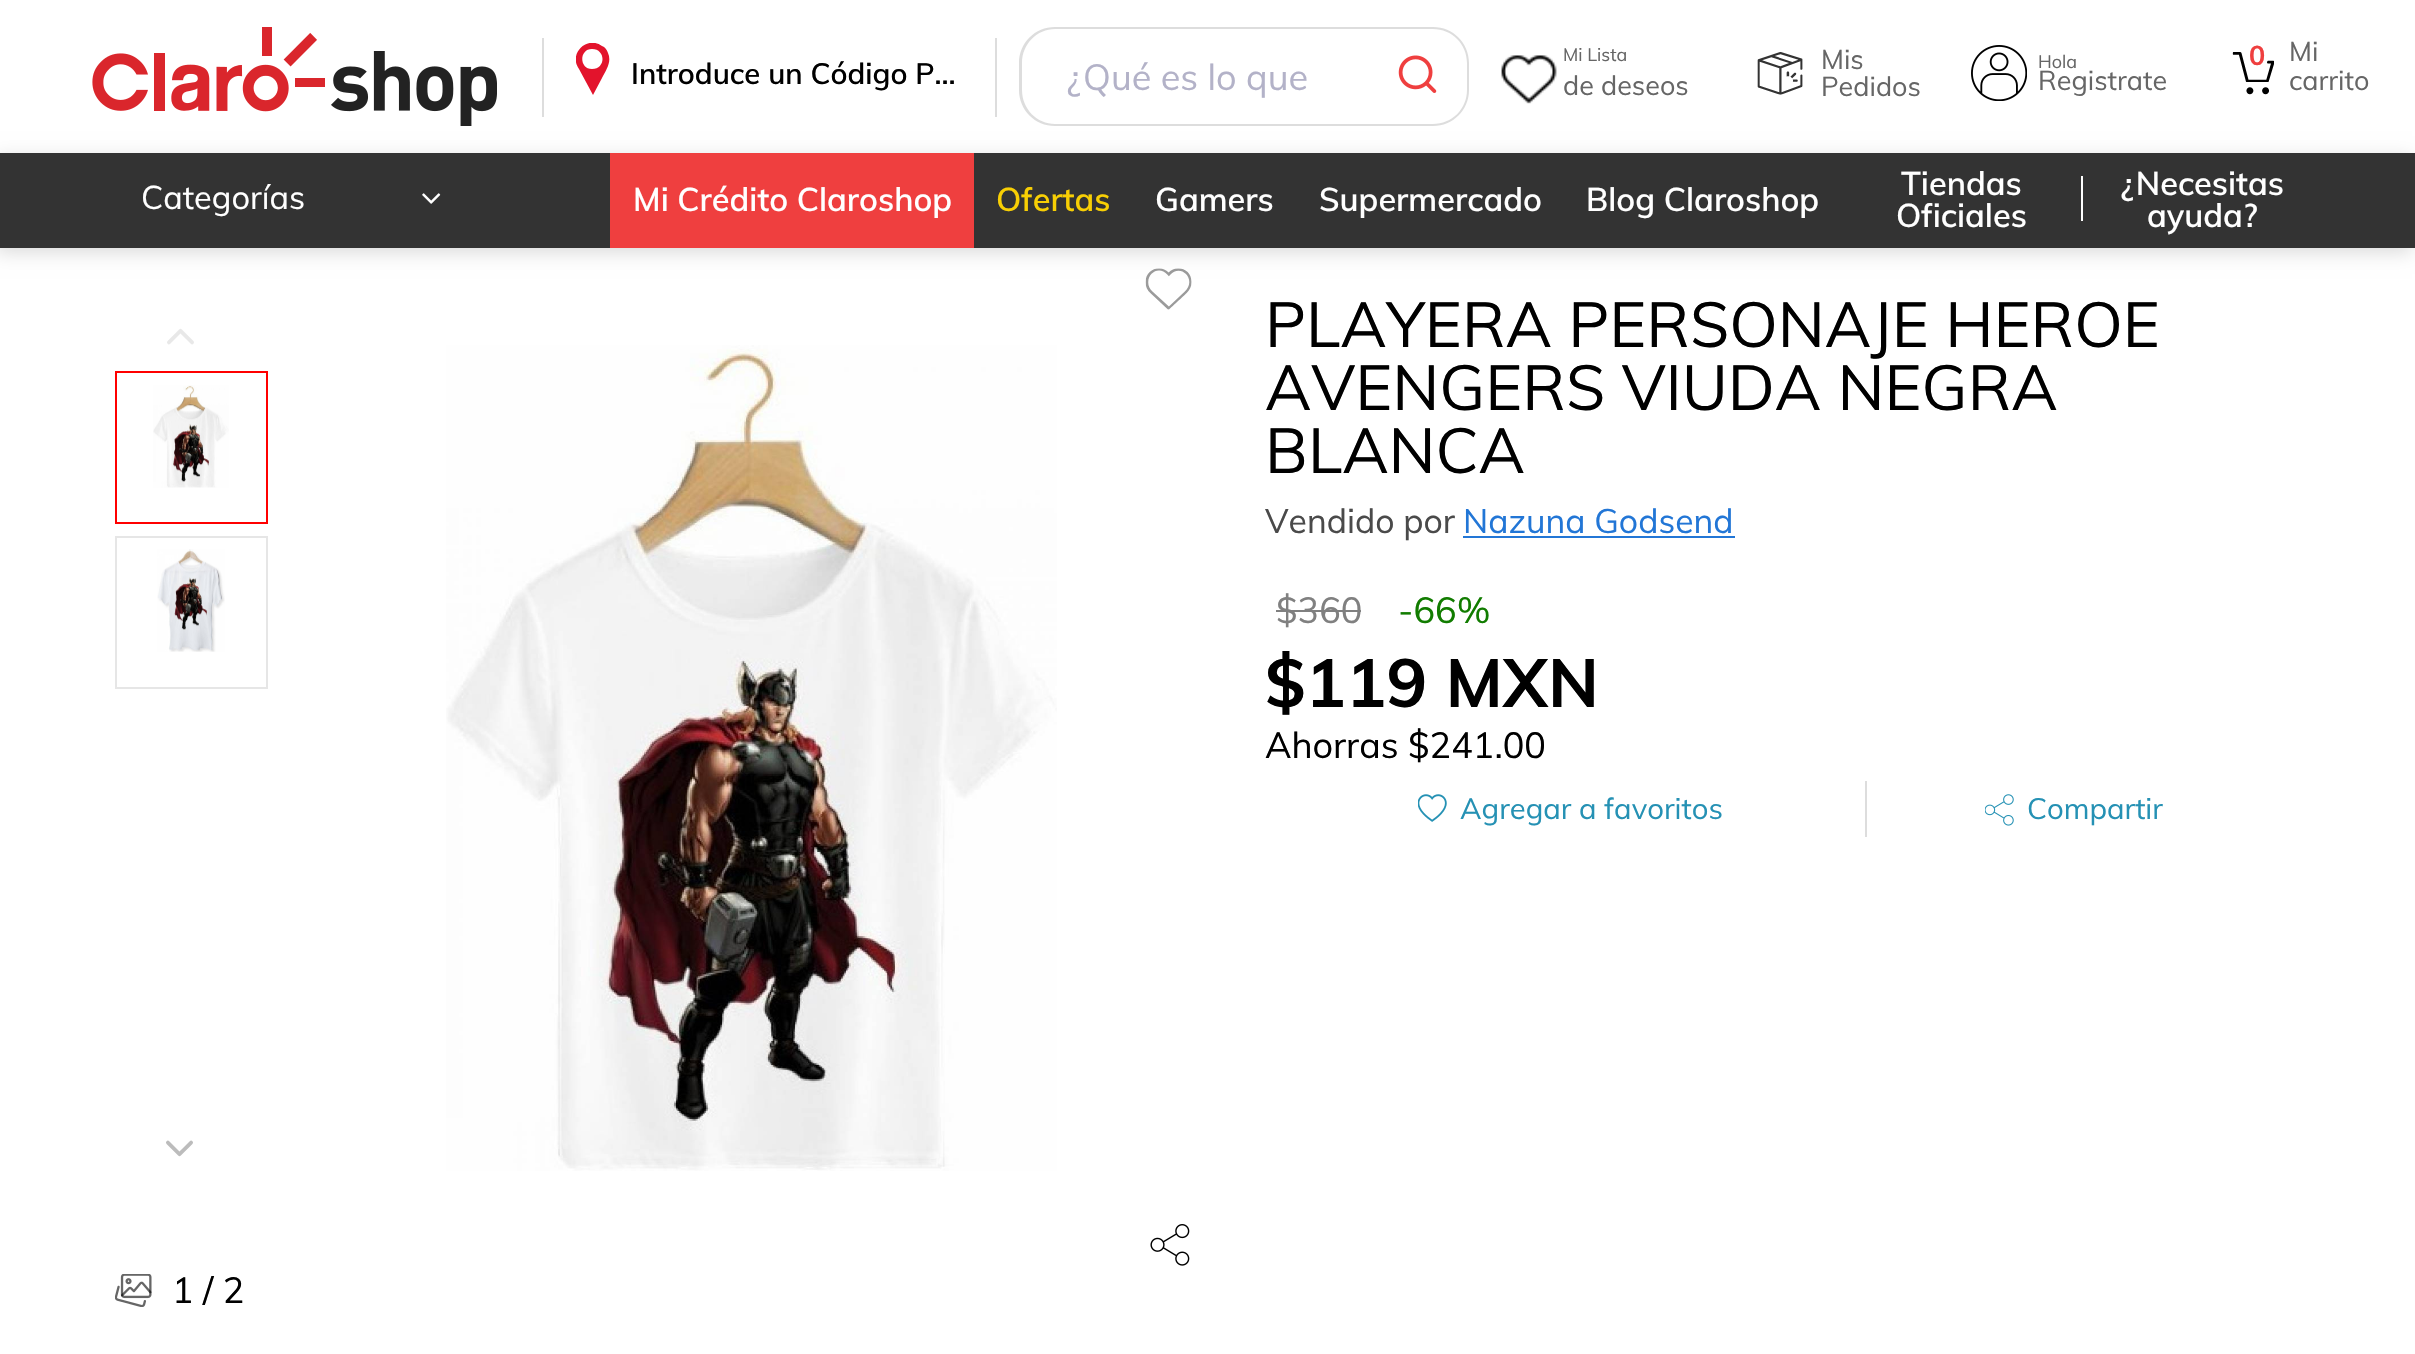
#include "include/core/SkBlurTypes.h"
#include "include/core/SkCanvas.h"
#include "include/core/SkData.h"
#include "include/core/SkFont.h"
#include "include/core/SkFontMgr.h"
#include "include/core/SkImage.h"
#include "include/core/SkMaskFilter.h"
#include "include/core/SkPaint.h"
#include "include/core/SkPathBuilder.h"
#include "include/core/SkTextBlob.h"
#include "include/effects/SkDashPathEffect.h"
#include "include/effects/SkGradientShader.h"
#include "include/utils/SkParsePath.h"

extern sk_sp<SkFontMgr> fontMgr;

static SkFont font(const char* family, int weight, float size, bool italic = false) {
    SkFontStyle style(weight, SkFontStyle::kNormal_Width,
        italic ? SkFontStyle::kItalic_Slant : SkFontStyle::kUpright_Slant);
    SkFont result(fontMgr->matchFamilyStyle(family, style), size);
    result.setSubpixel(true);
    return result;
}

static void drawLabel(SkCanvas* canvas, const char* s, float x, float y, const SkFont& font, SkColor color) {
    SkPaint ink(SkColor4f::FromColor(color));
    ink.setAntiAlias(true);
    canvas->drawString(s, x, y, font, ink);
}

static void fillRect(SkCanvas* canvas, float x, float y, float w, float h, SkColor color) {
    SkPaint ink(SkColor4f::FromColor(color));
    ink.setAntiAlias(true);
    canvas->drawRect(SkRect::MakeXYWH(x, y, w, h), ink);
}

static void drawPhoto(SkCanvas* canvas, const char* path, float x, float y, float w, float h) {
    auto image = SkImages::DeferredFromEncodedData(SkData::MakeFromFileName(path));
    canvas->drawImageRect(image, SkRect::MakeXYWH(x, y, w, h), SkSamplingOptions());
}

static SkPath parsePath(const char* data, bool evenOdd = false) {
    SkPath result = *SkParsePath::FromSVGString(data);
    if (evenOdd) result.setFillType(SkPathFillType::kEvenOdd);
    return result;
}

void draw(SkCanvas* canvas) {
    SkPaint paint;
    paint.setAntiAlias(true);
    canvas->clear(0xFFFFFFFF);
    drawPhoto(canvas, "assets/img1.png", 92, 27, 405, 99);
    fillRect(canvas, 995, 38, 2, 79, 0xFFDDDDDD);
    fillRect(canvas, 542, 38, 2, 79, 0xFFDDDDDD);
    canvas->save();
    canvas->clipRect(SkRect::MakeXYWH(576, 43, 34, 54));
    paint.setColor(0xFFE3132C);
    canvas->drawPath(parsePath("M579 69C568 54 587 35 602 46C605 47 607 50 608 53C612 62 606 70 602 78L593 95ZM592 69C606 69 606 49 592 49C579 49 579 69 592 69Z"), paint);
    canvas->restore();
    SkFont font1 = font("Muli", 600, 29.25f);
    drawLabel(canvas, "Introduce un Código P…", 631, 84, font1, 0xFF000000);
    paint.setColor(0xFFDDDDDD);
    canvas->drawPath(parsePath("M1055 27H1361V126H1055C1035 126 1019 110 1019 90V63C1019 43 1035 27 1055 27ZM1055 29H1361V124H1055C1037 124 1022 109 1022 90V63C1022 44 1037 29 1055 29Z", true), paint);
    SkFont font2 = font("Muli", 400, 36);
    drawLabel(canvas, "¿Qué es lo que", 1067, 90, font2, 0xFFB3B2C8);
    canvas->drawPath(parsePath("M1361 27H1433C1453 27 1469 43 1469 63V90C1469 110 1453 126 1433 126H1361ZM1361 29H1433C1452 29 1467 44 1467 63V90C1467 109 1452 124 1433 124H1361Z", true), paint);
    drawPhoto(canvas, "assets/img2.png", 1398, 55, 39, 38);
    drawPhoto(canvas, "assets/img3.png", 1501, 55, 56, 49);
    SkFont font3 = font("Muli", 400, 18);
    drawLabel(canvas, "Mi Lista", 1563, 61, font3, 0xFF666666);
    SkFont font4 = font("Muli", 400, 27);
    drawLabel(canvas, "de deseos", 1563, 95, font4, 0xFF666666);
    drawPhoto(canvas, "assets/img4.png", 1757, 52, 46, 43);
    drawLabel(canvas, "Mis", 1821, 69, font4, 0xFF666666);
    drawLabel(canvas, "Pedidos", 1821, 96, font4, 0xFF666666);
    drawPhoto(canvas, "assets/img5.png", 1971, 45, 56, 56);
    drawLabel(canvas, "Hola", 2038, 68, font3, 0xFF666666);
    drawLabel(canvas, "Registrate", 2038, 90, font4, 0xFF666666);
    drawPhoto(canvas, "assets/img6.png", 2232, 52, 42, 43);
    SkFont font5 = font("Muli", 700, 27);
    drawLabel(canvas, "0", 2249, 65, font5, 0xFFEF3F3F);
    drawLabel(canvas, "Mi", 2289, 61, font4, 0xFF666666);
    drawLabel(canvas, "carrito", 2289, 90, font4, 0xFF666666);
    drawPhoto(canvas, "assets/img10.png", 1145, 268, 47, 42);
    paint.setColor(0x26000000);
    paint.setMaskFilter(SkMaskFilter::MakeBlur(kNormal_SkBlurStyle, 9));
    canvas->drawRect(SkRect::MakeXYWH(-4, 158, 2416, 94), paint);
    paint.setMaskFilter(nullptr);
    fillRect(canvas, 0, 153, 2415, 95, 0xFF333333);
    SkFont font6 = font("Muli", 400, 32.5f);
    drawLabel(canvas, "Categorías", 141, 209, font6, 0xFFFFFFFF);
    drawPhoto(canvas, "assets/img7.png", 422, 193, 19, 11);
    fillRect(canvas, 610, 153, 364, 95, 0xFFEF3F3F);
    SkFont font7 = font("Muli", 600, 32.5f);
    drawLabel(canvas, "Mi Crédito Claroshop", 633, 211, font7, 0xFFFFFFFF);
    drawLabel(canvas, "Ofertas", 996, 211, font7, 0xFFF8CF04);
    drawLabel(canvas, "Gamers", 1155, 211, font7, 0xFFFFFFFF);
    drawLabel(canvas, "Supermercado", 1319, 211, font7, 0xFFFFFFFF);
    drawLabel(canvas, "Blog Claroshop", 1586, 211, font7, 0xFFFFFFFF);
    drawLabel(canvas, "Tiendas", 1901, 195, font7, 0xFFFFFFFF);
    drawLabel(canvas, "Oficiales", 1896, 227, font7, 0xFFFFFFFF);
    fillRect(canvas, 2081, 176, 2, 45, 0xFFFFFFFF);
    drawLabel(canvas, "¿Necesitas", 2121, 195, font7, 0xFFFFFFFF);
    drawLabel(canvas, "ayuda?", 2147, 227, font7, 0xFFFFFFFF);
    SkFont font8 = font("Muli", 400, 63);
    drawLabel(canvas, "PLAYERA PERSONAJE HEROE", 1265, 347, font8, 0xFF000000);
    drawLabel(canvas, "AVENGERS VIUDA NEGRA", 1265, 410, font8, 0xFF000000);
    drawLabel(canvas, "BLANCA", 1265, 473, font8, 0xFF000000);
    SkFont font9 = font("Muli", 400, 33.75f);
    drawLabel(canvas, "Vendido por", 1265, 533, font9, 0xFF4A4A4A);
    drawLabel(canvas, "Nazuna Godsend", 1463, 533, font9, 0xFF2276D6);
    fillRect(canvas, 1463, 536, 272, 2, 0xFF2276D6);
    drawLabel(canvas, "$360", 1276, 623, font2, 0xFF808080);
    fillRect(canvas, 1276, 610, 85, 2, 0xFF808080);
    drawLabel(canvas, "-66%", 1398, 623, font2, 0xFF117C00);
    SkFont font10 = font("Muli", 700, 67.5f);
    drawLabel(canvas, "$119 MXN", 1265, 707, font10, 0xFF000000);
    drawLabel(canvas, "Ahorras $241.00", 1265, 758, font2, 0xFF000000);
    fillRect(canvas, 1865, 781, 2, 56, 0xFFDDDDDD);
    drawPhoto(canvas, "assets/img8.png", 1418, 794, 29, 28);
    SkFont font11 = font("Muli", 400, 29.25f);
    drawLabel(canvas, "Agregar a favoritos", 1460, 819, font11, 0xFF2591B4);
    drawPhoto(canvas, "assets/img9.png", 1985, 794, 29, 32);
    drawLabel(canvas, "Compartir", 2027, 819, font11, 0xFF2591B4);
    drawPhoto(canvas, "assets/img11.png", 167, 328, 27, 17);
    paint.setStroke(true);
    paint.setStrokeWidth(2);
    paint.setColor(0xFFFF0000);
    canvas->drawRect(SkRect::MakeXYWH(116, 372, 151, 151), paint);
    drawPhoto(canvas, "assets/img12.png", 153, 385, 76, 103);
    paint.setColor(0xFFE6E6E6);
    canvas->drawRect(SkRect::MakeXYWH(116, 537, 151, 151), paint);
    drawPhoto(canvas, "assets/img13.png", 157, 549, 68, 103);
    drawPhoto(canvas, "assets/img14.png", 166, 1140, 27, 17);
    drawPhoto(canvas, "assets/img15.png", 446, 345, 611, 826);
    drawPhoto(canvas, "assets/img16.png", 1150, 1224, 40, 42);
    drawPhoto(canvas, "assets/img17.png", 115, 1274, 37, 33);
    drawLabel(canvas, "1 / 2", 172, 1303, font2, 0xFF000000);
}
